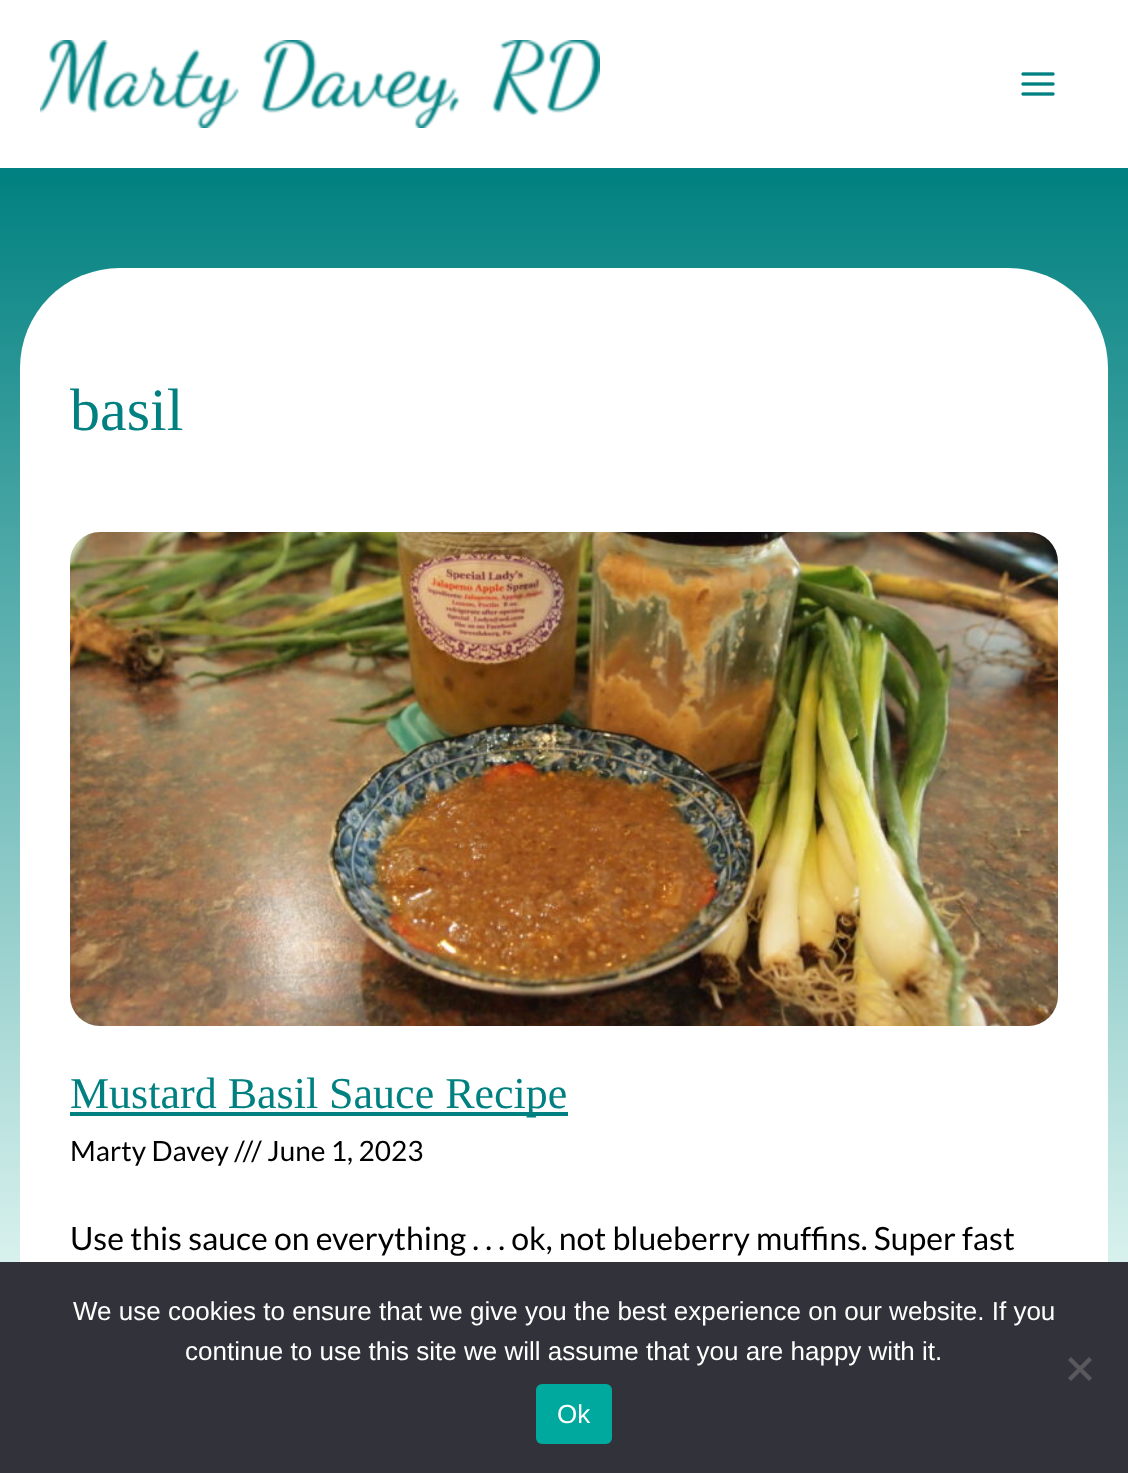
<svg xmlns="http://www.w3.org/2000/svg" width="1128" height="1473">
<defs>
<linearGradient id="g1" gradientUnits="userSpaceOnUse" x1="564" y1="168" x2="564" y2="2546"><stop offset="0" stop-color="#008080"/><stop offset="0.5" stop-color="#ebfbf7"/></linearGradient>
</defs>
<rect width="100%" height="100%" fill="#fff"/>
<image x="40" y="40" width="560" height="88" href="media/1.png"/>
<image x="1021" y="72" width="34" height="24" href="media/2.png"/>
<rect y="168" width="1128" height="1094" fill="url(#g1)"/>
<rect x="20" y="268" width="1088" height="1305" rx="100" fill="#fff"/>
<text x="70" y="430" style="font-family:Liberation Serif;font-size:60px;fill:#008080">basil</text>
<image x="70" y="532" width="988" height="494" href="media/3.png"/>
<rect x="70" y="1112" width="498" height="4" fill="#008080"/>
<text x="70" y="1108" style="font-family:Liberation Serif;font-size:44px;fill:#008080">Mustard Basil Sauce Recipe</text>
<text x="70" y="1161" style="font-family:Lato;font-size:28px;fill:#000">Marty Davey /// June 1, 2023</text>
<text x="70" y="1250" style="font-family:Lato;font-size:32px;fill:#000">Use this sauce on everything . . . ok, not blueberry muffins. Super fast</text>
<rect y="1262" width="1128" height="211" fill="#32323a"/>
<text x="73" y="1320" style="font-family:Liberation Sans;font-size:26px;fill:#fff">We use cookies to ensure that we give you the best experience on our website. If you</text>
<text x="185" y="1360" style="font-family:Liberation Sans;font-size:26px;fill:#fff">continue to use this site we will assume that you are happy with it.</text>
<path d="M1089 1357l3 3l-21 21l-3-3z" fill="#59595d"/>
<path d="M1068 1360l3-3l21 21l-3 3z" fill="#59595d"/>
<rect x="536" y="1384" width="76" height="60" rx="6" fill="#00a99d"/>
<text x="557" y="1423" style="font-family:Liberation Sans;font-size:26px;fill:#fff">Ok</text>
</svg>
